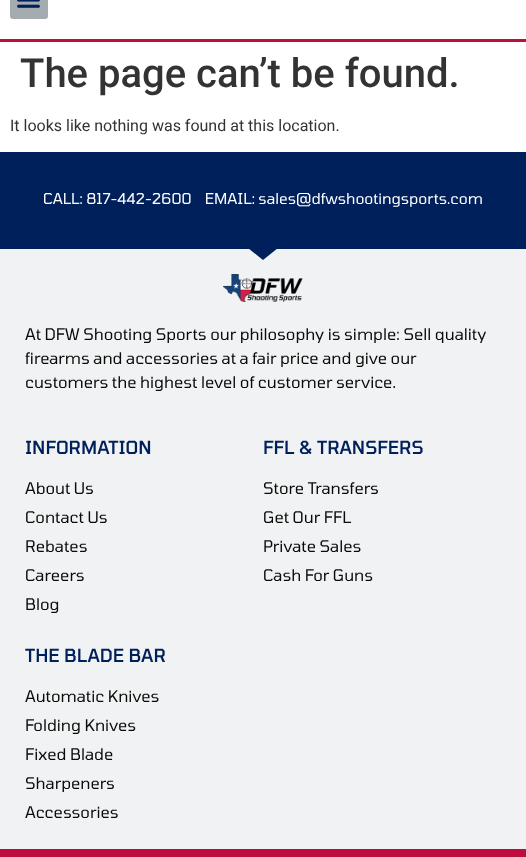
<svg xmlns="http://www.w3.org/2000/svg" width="526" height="857">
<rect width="100%" height="100%" fill="#fff"/>
<rect y="39" width="526" height="3" fill="#bf0d3e"/>
<rect x="10" y="-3" width="38" height="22" rx="3" fill="#a5acaf"/>
<image x="17" y="0" width="23" height="8" href="media/1.png"/>
<text x="20" y="87" style="font-family:Roboto;font-size:40px;font-weight:500;fill:#333">The page can’t be found.</text>
<text x="10" y="131" style="font-family:Roboto;font-size:16px;fill:#333">It looks like nothing was found at this location.</text>
<rect y="152" width="526" height="97" fill="#00205b"/>
<text x="43" y="204" style="font-family:Tomorrow;font-size:15px;fill:#fff" xml:space="preserve">CALL: 817-442-2600    EMAIL: sales@dfwshootingsports.com</text>
<rect y="249" width="526" height="600" fill="#f1f2f3"/>
<path d="M263 260l-15-12h30z" fill="#00205b"/>
<image x="223" y="274" width="80" height="28" href="media/2.png"/>
<text x="25" y="340" style="font-family:Tomorrow;font-size:16px;fill:#0a0a08">At DFW Shooting Sports our philosophy is simple: Sell quality</text>
<text x="25" y="364" style="font-family:Tomorrow;font-size:16px;fill:#0a0a08">firearms and accessories at a fair price and give our</text>
<text x="25" y="388" style="font-family:Tomorrow;font-size:16px;fill:#0a0a08">customers the highest level of customer service.</text>
<text x="25" y="454" style="font-family:Tomorrow;font-size:18px;font-weight:500;fill:#00205b">INFORMATION</text>
<text x="25" y="494" style="font-family:Tomorrow;font-size:16px;fill:#0a0a08">About Us</text>
<text x="25" y="523" style="font-family:Tomorrow;font-size:16px;fill:#0a0a08">Contact Us</text>
<text x="25" y="552" style="font-family:Tomorrow;font-size:16px;fill:#0a0a08">Rebates</text>
<text x="25" y="581" style="font-family:Tomorrow;font-size:16px;fill:#0a0a08">Careers</text>
<text x="25" y="610" style="font-family:Tomorrow;font-size:16px;fill:#0a0a08">Blog</text>
<text x="263" y="454" style="font-family:Tomorrow;font-size:18px;font-weight:500;fill:#00205b">FFL &amp; TRANSFERS</text>
<text x="263" y="494" style="font-family:Tomorrow;font-size:16px;fill:#0a0a08">Store Transfers</text>
<text x="263" y="523" style="font-family:Tomorrow;font-size:16px;fill:#0a0a08">Get Our FFL</text>
<text x="263" y="552" style="font-family:Tomorrow;font-size:16px;fill:#0a0a08">Private Sales</text>
<text x="263" y="581" style="font-family:Tomorrow;font-size:16px;fill:#0a0a08">Cash For Guns</text>
<text x="25" y="662" style="font-family:Tomorrow;font-size:18px;font-weight:500;fill:#00205b">THE BLADE BAR</text>
<text x="25" y="702" style="font-family:Tomorrow;font-size:16px;fill:#0a0a08">Automatic Knives</text>
<text x="25" y="731" style="font-family:Tomorrow;font-size:16px;fill:#0a0a08">Folding Knives</text>
<text x="25" y="760" style="font-family:Tomorrow;font-size:16px;fill:#0a0a08">Fixed Blade</text>
<text x="25" y="789" style="font-family:Tomorrow;font-size:16px;fill:#0a0a08">Sharpeners</text>
<text x="25" y="818" style="font-family:Tomorrow;font-size:16px;fill:#0a0a08">Accessories</text>
<rect y="849" width="526" height="8" fill="#bf0d3e"/>
</svg>
